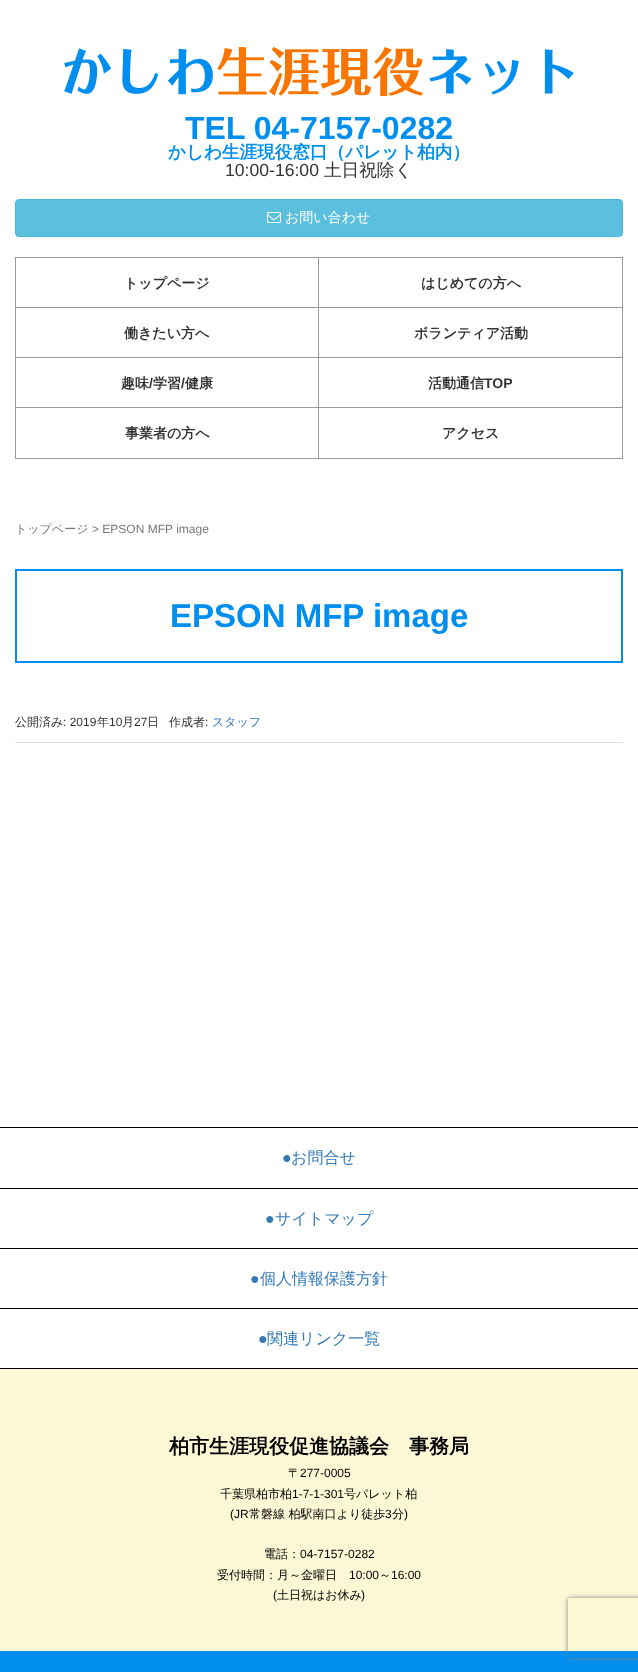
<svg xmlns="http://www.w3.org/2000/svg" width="638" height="1672">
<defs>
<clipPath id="clip1"><path d="M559 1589h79v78h-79zm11 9h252c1 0 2 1 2 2v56c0 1-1 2-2 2h-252c-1 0-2-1-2-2v-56c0-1 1-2 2-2z" clip-rule="evenodd"/></clipPath>
</defs>
<rect width="100%" height="100%" fill="#fff"/>
<image x="64" y="47" width="510" height="49" href="media/1.png"/>
<text x="185" y="139" style="font-family:Liberation Sans;font-size:32px;font-weight:bold;fill:#008fef">TEL 04-7157-0282</text>
<text x="168" y="158" style="font-family:WenQuanYi Zen Hei;font-size:17.6px;font-weight:bold;fill:#008fef">かしわ生涯現役窓口（パレット柏内）</text>
<text x="225" y="176" style="font-family:Liberation Sans;font-size:17.6px;fill:#333">10:00-16:00</text>
<text x="324" y="176" style="font-family:WenQuanYi Zen Hei;font-size:17.6px;font-weight:500;fill:#333">土日祝除く</text>
<rect x="15.5" y="199.5" width="607" height="37" rx="3.5" fill="#5bc0de" stroke="#46b8da"/>
<image x="267" y="212" width="14" height="11" href="media/2.png"/>
<text x="285" y="222" style="font-family:WenQuanYi Zen Hei;font-size:14px;font-weight:500;fill:#fff">お問い合わせ</text>
<rect x="15.5" y="257.5" width="607" height="201" fill="none" stroke="#999"/>
<rect x="318" y="258" width="1" height="200" fill="#999"/>
<rect x="16" y="307" width="606" height="1" fill="#999"/>
<text x="124" y="288" style="font-family:WenQuanYi Zen Hei;font-size:14px;font-weight:bold;fill:#333">トップページ</text>
<text x="421" y="288" style="font-family:WenQuanYi Zen Hei;font-size:14px;font-weight:bold;fill:#333">はじめての方へ</text>
<rect x="16" y="357" width="606" height="1" fill="#999"/>
<text x="124" y="338" style="font-family:WenQuanYi Zen Hei;font-size:14px;font-weight:bold;fill:#333">働きたい方へ</text>
<text x="414" y="338" style="font-family:WenQuanYi Zen Hei;font-size:14px;font-weight:bold;fill:#333">ボランティア活動</text>
<rect x="16" y="407" width="606" height="1" fill="#999"/>
<text x="121" y="388" style="font-family:WenQuanYi Zen Hei;font-size:14px;font-weight:bold;fill:#333">趣味</text>
<text x="149" y="388" style="font-family:Liberation Sans;font-size:14px;font-weight:bold;fill:#333">/</text>
<text x="153" y="388" style="font-family:WenQuanYi Zen Hei;font-size:14px;font-weight:bold;fill:#333">学習</text>
<text x="181" y="388" style="font-family:Liberation Sans;font-size:14px;font-weight:bold;fill:#333">/</text>
<text x="185" y="388" style="font-family:WenQuanYi Zen Hei;font-size:14px;font-weight:bold;fill:#333">健康</text>
<text x="428" y="388" style="font-family:WenQuanYi Zen Hei;font-size:14px;font-weight:bold;fill:#333">活動通信</text>
<text x="484" y="388" style="font-family:Liberation Sans;font-size:14px;font-weight:bold;fill:#333">TOP</text>
<text x="125" y="438" style="font-family:WenQuanYi Zen Hei;font-size:14px;font-weight:bold;fill:#333">事業者の方へ</text>
<text x="442" y="438" style="font-family:WenQuanYi Zen Hei;font-size:14px;font-weight:bold;fill:#333">アクセス</text>
<text x="15" y="533" style="font-family:WenQuanYi Zen Hei;font-size:12px;font-weight:500;fill:#777">トップページ</text>
<text x="92" y="533" style="font-family:Liberation Sans;font-size:12px;fill:#777">&gt; EPSON MFP image</text>
<rect x="16" y="570" width="606" height="92" fill="none" stroke="#008fef" stroke-width="2"/>
<text x="170" y="627" style="font-family:Liberation Sans;font-size:33px;font-weight:bold;fill:#008fef">EPSON MFP image</text>
<rect x="15" y="742" width="608" height="1" fill="#ddd"/>
<text x="15" y="726" style="font-family:WenQuanYi Zen Hei;font-size:12px;font-weight:500;fill:#333">公開済み</text>
<text x="63" y="726" style="font-family:Liberation Sans;font-size:12px;fill:#333">: 2019</text>
<text x="97" y="726" style="font-family:WenQuanYi Zen Hei;font-size:12px;font-weight:500;fill:#333">年</text>
<text x="109" y="726" style="font-family:Liberation Sans;font-size:12px;fill:#333">10</text>
<text x="122" y="726" style="font-family:WenQuanYi Zen Hei;font-size:12px;font-weight:500;fill:#333">月</text>
<text x="134" y="726" style="font-family:Liberation Sans;font-size:12px;fill:#333">27</text>
<text x="147" y="726" style="font-family:WenQuanYi Zen Hei;font-size:12px;font-weight:500;fill:#333">日</text>
<text x="169" y="726" style="font-family:WenQuanYi Zen Hei;font-size:12px;font-weight:500;fill:#333">作成者</text>
<text x="205" y="726" style="font-family:Liberation Sans;font-size:12px;fill:#333">:</text>
<text x="212" y="726" style="font-family:WenQuanYi Zen Hei;font-size:12px;font-weight:500;fill:#337ab7">スタッフ</text>
<rect y="1127" width="638" height="1" fill="#000"/>
<text x="282" y="1163" style="font-family:Liberation Sans;font-size:16px;fill:#337ab7">●</text>
<text x="291" y="1163" style="font-family:WenQuanYi Zen Hei;font-size:16px;font-weight:500;fill:#337ab7">お問合せ</text>
<rect y="1188" width="638" height="1" fill="#000"/>
<text x="265" y="1224" style="font-family:Liberation Sans;font-size:16px;fill:#337ab7">●</text>
<text x="275" y="1224" style="font-family:WenQuanYi Zen Hei;font-size:16px;font-weight:500;fill:#337ab7">サイトマップ</text>
<rect y="1248" width="638" height="1" fill="#000"/>
<text x="250" y="1284" style="font-family:Liberation Sans;font-size:16px;fill:#337ab7">●</text>
<text x="260" y="1284" style="font-family:WenQuanYi Zen Hei;font-size:16px;font-weight:500;fill:#337ab7">個人情報保護方針</text>
<rect y="1308" width="638" height="1" fill="#000"/>
<rect y="1368" width="638" height="1" fill="#000"/>
<text x="258" y="1344" style="font-family:Liberation Sans;font-size:16px;fill:#337ab7">●</text>
<text x="267" y="1344" style="font-family:WenQuanYi Zen Hei;font-size:16px;font-weight:500;fill:#337ab7">関連リンク一覧</text>
<rect y="1369" width="638" height="282" fill="#fcf8d6"/>
<text x="169" y="1453" style="font-family:WenQuanYi Zen Hei;font-size:20px;font-weight:bold;fill:#000">柏市生涯現役促進協議会　事務局</text>
<text x="288" y="1477" style="font-family:WenQuanYi Zen Hei;font-size:12px;font-weight:500;fill:#000">〒</text>
<text x="300" y="1477" style="font-family:Liberation Sans;font-size:12px;fill:#000">277-0005</text>
<text x="220" y="1498" style="font-family:WenQuanYi Zen Hei;font-size:12px;font-weight:500;fill:#000">千葉県柏市柏</text>
<text x="292" y="1498" style="font-family:Liberation Sans;font-size:12px;fill:#000">1-7-1-301</text>
<text x="344" y="1498" style="font-family:WenQuanYi Zen Hei;font-size:12px;font-weight:500;fill:#000">号パレット柏</text>
<text x="230" y="1518" style="font-family:Liberation Sans;font-size:12px;fill:#000">(JR</text>
<text x="249" y="1518" style="font-family:WenQuanYi Zen Hei;font-size:12px;font-weight:500;fill:#000">常磐線 柏駅南口より徒歩</text>
<text x="385" y="1518" style="font-family:Liberation Sans;font-size:12px;fill:#000">3</text>
<text x="392" y="1518" style="font-family:WenQuanYi Zen Hei;font-size:12px;font-weight:500;fill:#000">分</text>
<text x="404" y="1518" style="font-family:Liberation Sans;font-size:12px;fill:#000">)</text>
<text x="264" y="1558" style="font-family:WenQuanYi Zen Hei;font-size:12px;font-weight:500;fill:#000">電話：</text>
<text x="300" y="1558" style="font-family:Liberation Sans;font-size:12px;fill:#000">04-7157-0282</text>
<text x="217" y="1579" style="font-family:WenQuanYi Zen Hei;font-size:12px;font-weight:500;fill:#000">受付時間：月～金曜日</text>
<text x="349" y="1579" style="font-family:Liberation Sans;font-size:12px;fill:#000">10:00</text>
<text x="379" y="1579" style="font-family:WenQuanYi Zen Hei;font-size:12px;font-weight:500;fill:#000">～</text>
<text x="391" y="1579" style="font-family:Liberation Sans;font-size:12px;fill:#000">16:00</text>
<text x="273" y="1599" style="font-family:Liberation Sans;font-size:12px;fill:#000">(</text>
<text x="277" y="1599" style="font-family:WenQuanYi Zen Hei;font-size:12px;font-weight:500;fill:#000">土日祝はお休み</text>
<text x="361" y="1599" style="font-family:Liberation Sans;font-size:12px;fill:#000">)</text>
<rect y="1651" width="638" height="21" fill="#008fef"/>
<g clip-path="url(#clip1)">
<rect x="568" y="1598" width="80" height="60" rx="2" fill="#808080" filter="blur(2.5px)"/>
</g>
</svg>
